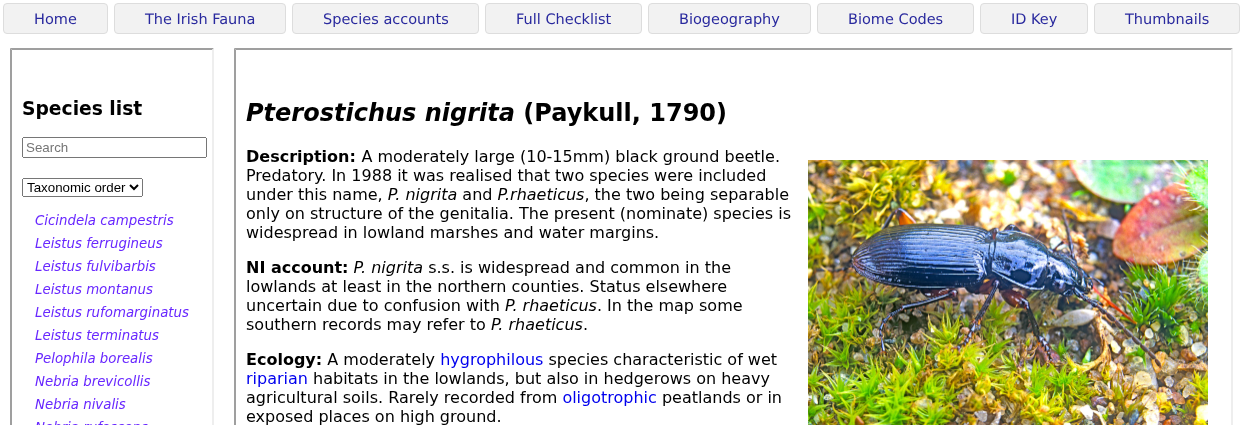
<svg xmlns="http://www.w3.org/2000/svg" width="1243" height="425">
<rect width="100%" height="100%" fill="#fff"/>
<rect x="3.5" y="3.5" width="104" height="30" rx="3.5" fill="#f2f2f2" stroke="#ddd"/>
<text x="34" y="24" style="font-family:DejaVu Sans;font-size:14.5px;fill:#29299e">Home</text>
<rect x="114.5" y="3.5" width="171" height="30" rx="3.5" fill="#f2f2f2" stroke="#ddd"/>
<text x="145" y="24" style="font-family:DejaVu Sans;font-size:14.5px;fill:#29299e">The Irish Fauna</text>
<rect x="292.5" y="3.5" width="186" height="30" rx="3.5" fill="#f2f2f2" stroke="#ddd"/>
<text x="323" y="24" style="font-family:DejaVu Sans;font-size:14.5px;fill:#29299e">Species accounts</text>
<rect x="485.5" y="3.5" width="156" height="30" rx="3.5" fill="#f2f2f2" stroke="#ddd"/>
<text x="516" y="24" style="font-family:DejaVu Sans;font-size:14.5px;fill:#29299e">Full Checklist</text>
<rect x="648.5" y="3.5" width="162" height="30" rx="3.5" fill="#f2f2f2" stroke="#ddd"/>
<text x="679" y="24" style="font-family:DejaVu Sans;font-size:14.5px;fill:#29299e">Biogeography</text>
<rect x="817.5" y="3.5" width="156" height="30" rx="3.5" fill="#f2f2f2" stroke="#ddd"/>
<text x="848" y="24" style="font-family:DejaVu Sans;font-size:14.5px;fill:#29299e">Biome Codes</text>
<rect x="980.5" y="3.5" width="107" height="30" rx="3.5" fill="#f2f2f2" stroke="#ddd"/>
<text x="1011" y="24" style="font-family:DejaVu Sans;font-size:14.5px;fill:#29299e">ID Key</text>
<rect x="1094.5" y="3.5" width="145" height="30" rx="3.5" fill="#f2f2f2" stroke="#ddd"/>
<text x="1125" y="24" style="font-family:DejaVu Sans;font-size:14.5px;fill:#29299e">Thumbnails</text>
<path d="M10 48h204l-2 2h-200z" fill="#9f9f9f"/>
<path d="M214 48v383l-2-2v-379z" fill="#eee"/>
<path d="M10 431v-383l2 2v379z" fill="#9f9f9f"/>
<image x="12" y="50" width="200" height="375" href="media/1.png"/>
<path d="M234 48h999l-2 2h-995z" fill="#9f9f9f"/>
<path d="M1233 48v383l-2-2v-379z" fill="#eee"/>
<path d="M234 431v-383l2 2v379z" fill="#9f9f9f"/>
<image x="246" y="102" width="962" height="323" href="media/2.png"/>
</svg>
